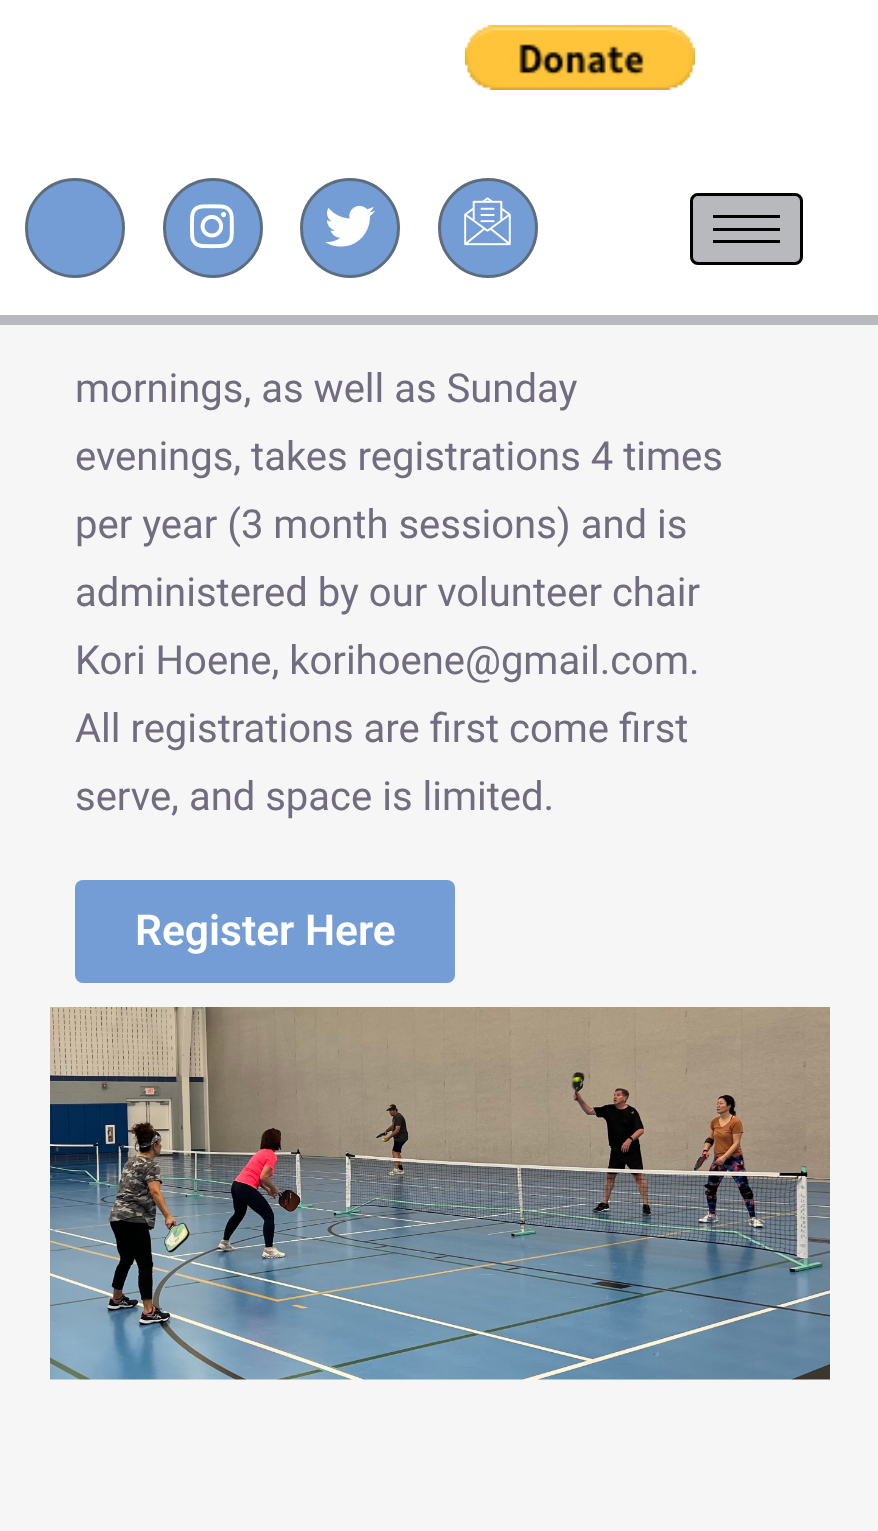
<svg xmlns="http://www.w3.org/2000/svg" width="878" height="1531">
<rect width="100%" height="100%" fill="#f6f6f6"/>
<rect width="878" height="315" fill="#fff"/>
<rect y="315" width="878" height="10" fill="#b7b9bd"/>
<image x="465" y="25" width="230" height="65" href="media/1.png"/>
<circle cx="75" cy="228" r="48.5" fill="#749dd5" stroke="#5e6d7e" stroke-width="3"/>
<circle cx="213" cy="228" r="48.5" fill="#749dd5" stroke="#5e6d7e" stroke-width="3"/>
<image x="190" y="204" width="44" height="45" href="media/2.png"/>
<circle cx="350" cy="228" r="48.5" fill="#749dd5" stroke="#5e6d7e" stroke-width="3"/>
<image x="325" y="205" width="50" height="42" href="media/3.png"/>
<circle cx="488" cy="228" r="48.5" fill="#749dd5" stroke="#5e6d7e" stroke-width="3"/>
<image x="464" y="197" width="47" height="49" href="media/4.png"/>
<rect x="691.5" y="194.5" width="110" height="69" rx="6.5" fill="#b7b9bd" stroke="#000" stroke-width="3"/>
<rect x="713" y="215" width="67" height="3" fill="#000"/>
<rect x="713" y="228" width="67" height="3" fill="#000"/>
<rect x="713" y="240" width="67" height="3" fill="#000"/>
<text x="75" y="402" style="font-family:Roboto;font-size:40px;fill:#716c80">mornings, as well as Sunday</text>
<text x="75" y="470" style="font-family:Roboto;font-size:40px;fill:#716c80">evenings, takes registrations 4 times</text>
<text x="75" y="538" style="font-family:Roboto;font-size:40px;fill:#716c80">per year (3 month sessions) and is</text>
<text x="75" y="606" style="font-family:Roboto;font-size:40px;fill:#716c80">administered by our volunteer chair</text>
<text x="75" y="674" style="font-family:Roboto;font-size:40px;fill:#716c80">Kori Hoene, korihoene@gmail.com.</text>
<text x="75" y="742" style="font-family:Roboto;font-size:40px;fill:#716c80">All registrations are first come first</text>
<text x="75" y="810" style="font-family:Roboto;font-size:40px;fill:#716c80">serve, and space is limited.</text>
<rect x="75" y="880" width="380" height="103" rx="8" fill="#749dd5"/>
<text x="135" y="945" style="font-family:Roboto;font-size:42.5px;font-weight:600;fill:#fff">Register Here</text>
<image x="50" y="1007" width="780" height="373" href="media/5.png"/>
</svg>
